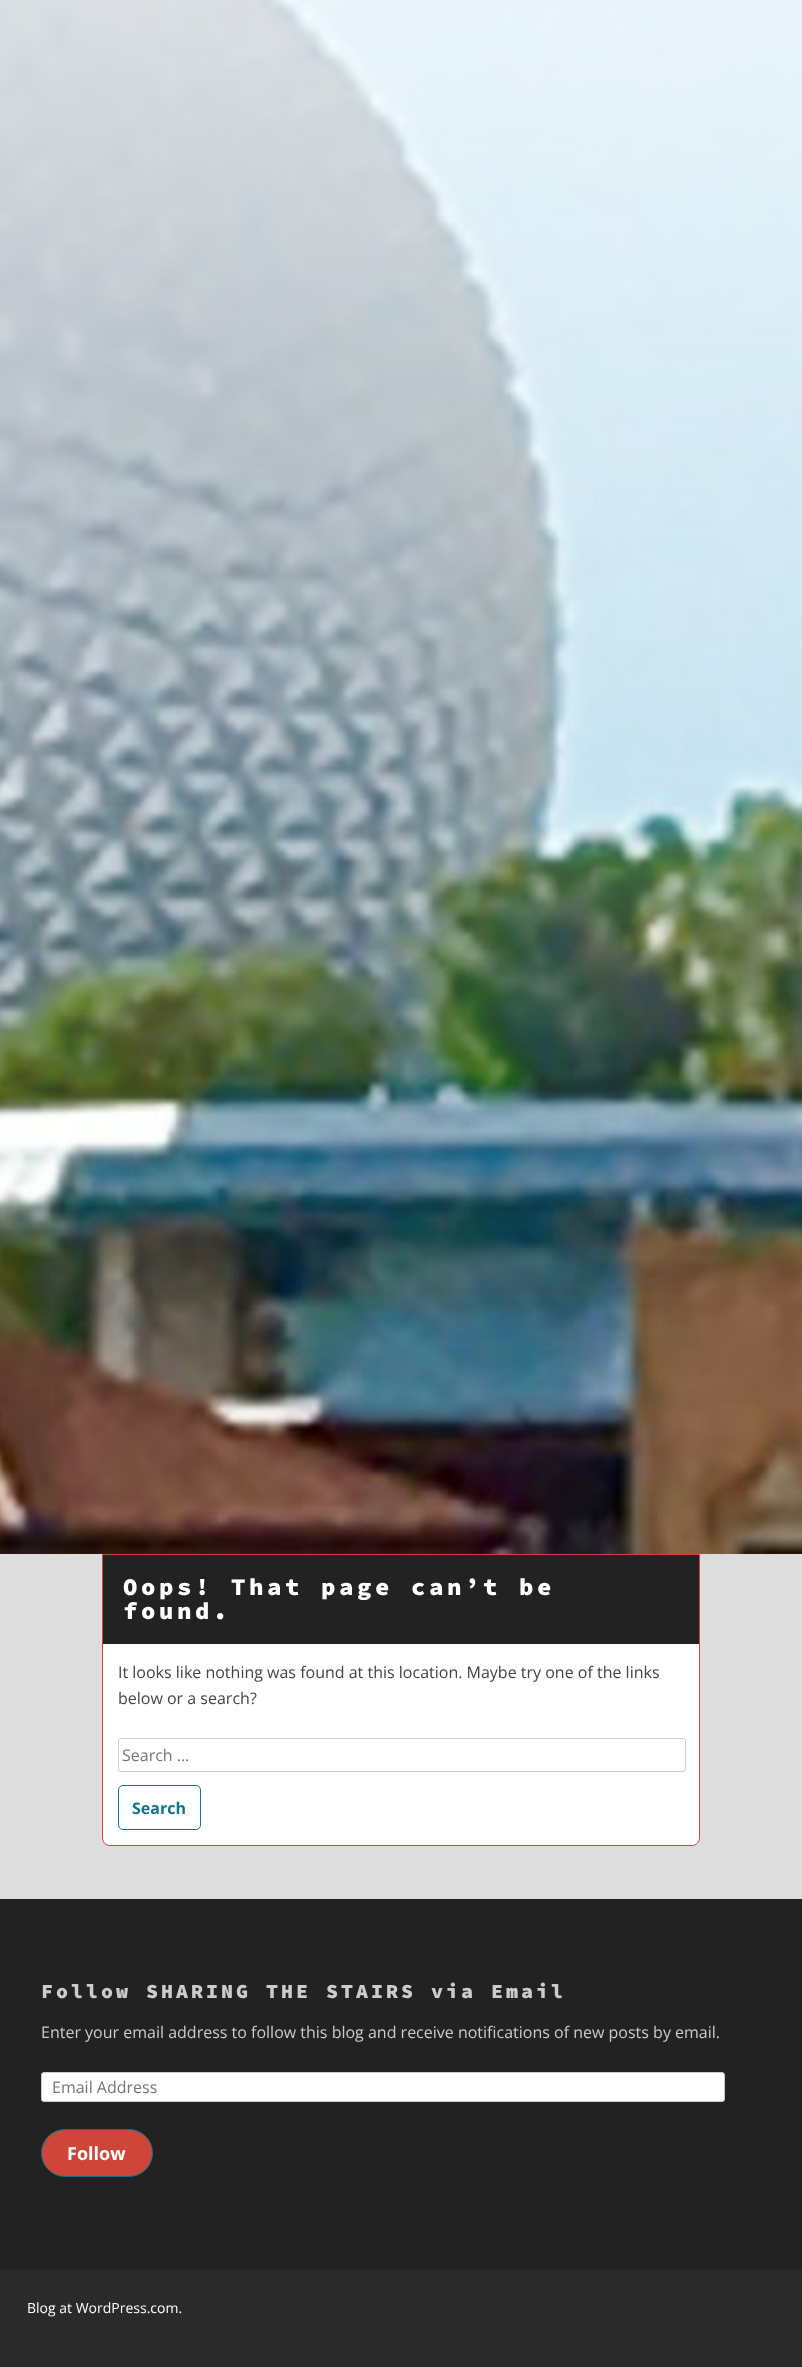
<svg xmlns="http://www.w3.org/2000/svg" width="802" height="2367">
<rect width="100%" height="100%" fill="#ddd"/>
<image x="0" y="0" width="802" height="1554" href="media/1.png"/>
<path d="M102.5 1554.5h597v283.5c0 4-3.5 7.5-7.5 7.5h-582c-4 0-7.5-3.5-7.5-7.5z" fill="#fff" stroke="#ce4639"/>
<rect x="103" y="1555" width="596" height="89" fill="#222"/>
<text x="123" y="1595" style="font-family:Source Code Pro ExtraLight;font-size:24px;font-weight:200;letter-spacing:3.6px;fill:#fff">Oops! That page can’t be</text>
<text x="123" y="1619" style="font-family:Source Code Pro ExtraLight;font-size:24px;font-weight:200;letter-spacing:3.6px;fill:#fff">found.</text>
<text x="118" y="1678" style="font-family:Open Sans;font-size:16px;fill:#434343">It looks like nothing was found at this location. Maybe try one of the links</text>
<text x="118" y="1704" style="font-family:Open Sans;font-size:16px;fill:#434343">below or a search?</text>
<rect x="118.5" y="1738.5" width="567" height="33" rx="2.5" fill="none" stroke="#ccc"/>
<text x="122" y="1761" style="font-family:Open Sans;font-size:16px;fill:#757575">Search …</text>
<rect x="118.5" y="1785.5" width="82" height="44" rx="4.5" fill="none" stroke="#0c758c"/>
<text x="132" y="1814" style="font-family:Open Sans;font-size:16px;font-weight:bold;fill:#0c758c">Search</text>
<rect y="1899" width="802" height="370" fill="#222"/>
<text x="41" y="1998" style="font-family:Source Code Pro ExtraLight;font-size:20px;font-weight:200;letter-spacing:3px;fill:#ccc">Follow SHARING THE STAIRS via Email</text>
<text x="41" y="2038" style="font-family:Open Sans;font-size:16px;fill:#ccc">Enter your email address to follow this blog and receive notifications of new posts by email.</text>
<rect x="41.5" y="2072.5" width="683" height="29" rx="2.5" fill="#fff" stroke="#ccc"/>
<text x="52" y="2093" style="font-family:Open Sans;font-size:16px;fill:#757575">Email Address</text>
<rect x="41.5" y="2129.5" width="111" height="47" rx="23.5" fill="#ce4639" stroke="#0c758c"/>
<text x="67" y="2160" style="font-family:Open Sans;font-size:18px;font-weight:bold;fill:#fff">Follow</text>
<rect y="2269" width="802" height="98" fill="#2a2a2a"/>
<text x="27" y="2313" style="font-family:Open Sans;font-size:14px;fill:#fff">Blog at WordPress.com.</text>
</svg>
